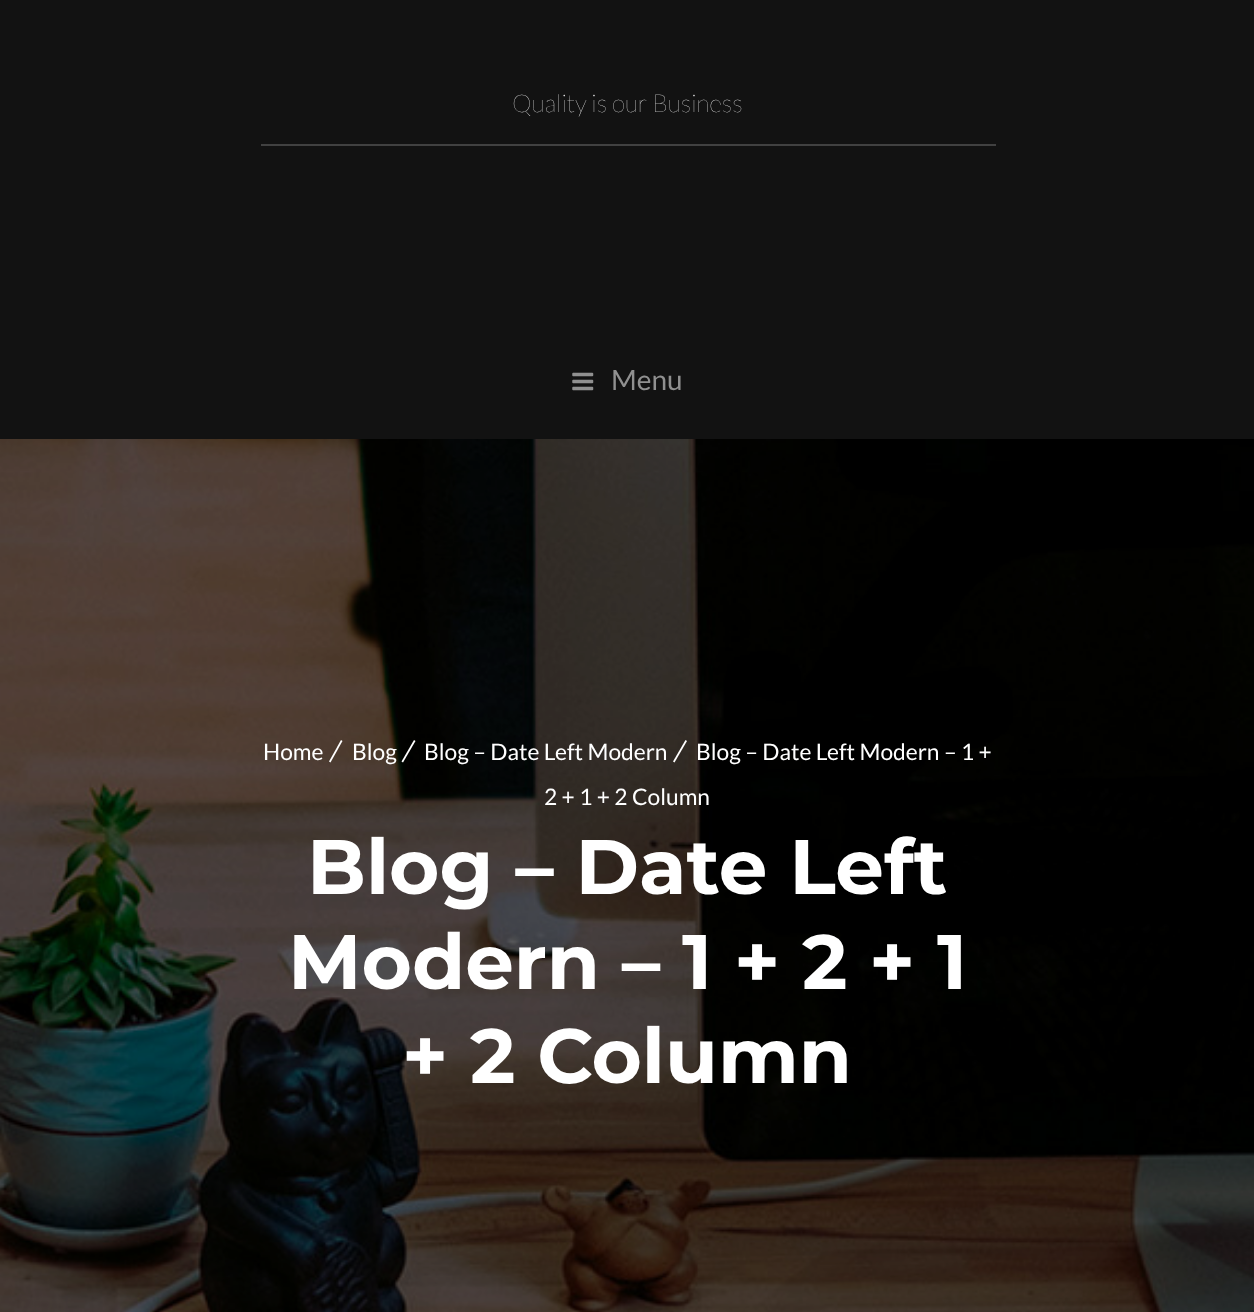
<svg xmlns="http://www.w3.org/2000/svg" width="1254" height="1312">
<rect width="100%" height="100%" fill="#fff"/>
<rect width="1254" height="439" fill="#121212"/>
<rect x="261" y="144" width="735" height="2" fill="#414141"/>
<text x="512" y="112" style="font-family:Lato;font-size:24.5px;font-weight:100;fill:#fff">Quality is our Business</text>
<image x="572" y="372" width="22" height="19" href="media/1.png"/>
<text x="611" y="390" style="font-family:Lato;font-size:28px;fill:#909090">Menu</text>
<image x="0" y="439" width="1254" height="873" href="media/2.png"/>
<rect y="439" width="1254" height="873" fill="#0000004d"/>
<text x="263" y="760" style="font-family:Lato;font-size:22.75px;fill:#fff">Home</text>
<path d="M341 740l1.5 1l-12 21.5l-1.5-1z" fill="#fff"/>
<text x="352" y="760" style="font-family:Lato;font-size:22.75px;fill:#fff">Blog</text>
<path d="M414 740l1.5 1l-12.5 21.5l-1.5-1z" fill="#fff"/>
<text x="424" y="760" style="font-family:Lato;font-size:22.75px;fill:#fff">Blog – Date Left Modern</text>
<path d="M685.5 740l1.5 1l-12.5 21.5l-1.5-1z" fill="#fff"/>
<text x="696" y="760" style="font-family:Lato;font-size:22.75px;fill:#fff">Blog – Date Left Modern – 1 +</text>
<text x="544" y="805" style="font-family:Lato;font-size:22.75px;fill:#fff">2 + 1 + 2 Column</text>
<text x="307" y="894" style="font-family:Montserrat;font-size:77px;font-weight:bold;fill:#fff">Blog – Date Left</text>
<text x="288" y="989" style="font-family:Montserrat;font-size:77px;font-weight:bold;fill:#fff">Modern – 1 + 2 + 1</text>
<text x="402" y="1083" style="font-family:Montserrat;font-size:77px;font-weight:bold;fill:#fff">+ 2 Column</text>
</svg>
